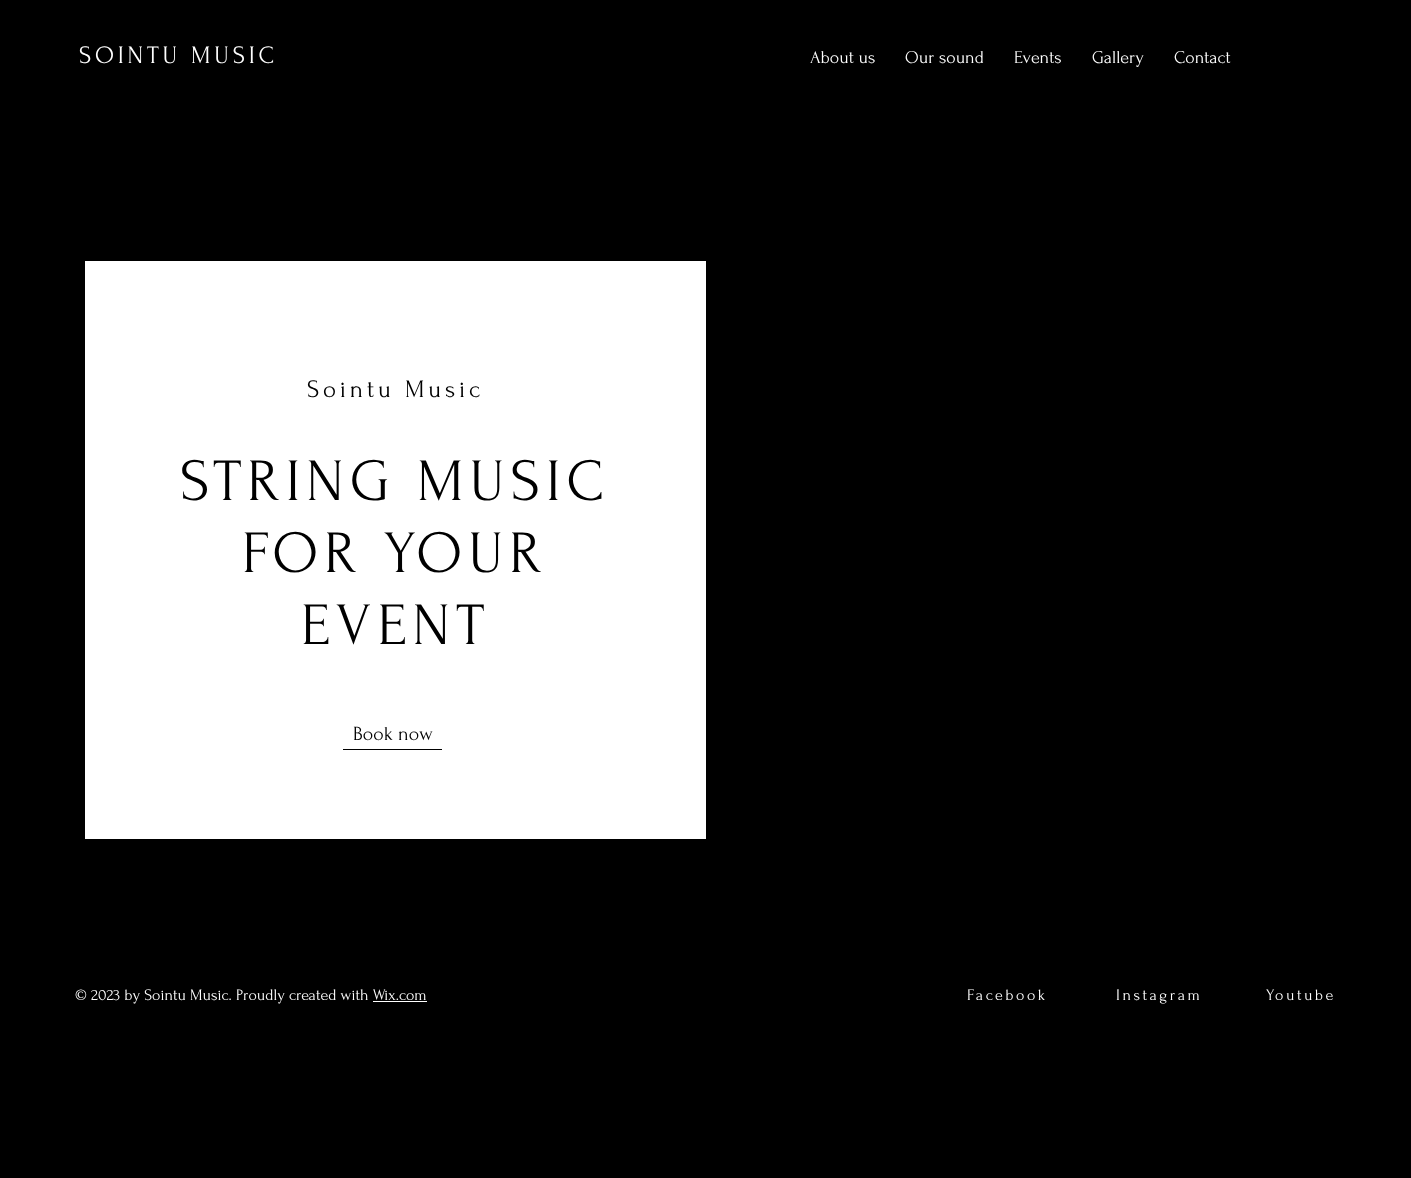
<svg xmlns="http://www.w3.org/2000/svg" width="1411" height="1178">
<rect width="100%" height="100%" fill="#000"/>
<text x="79" y="63" style="font-family:Forum;font-size:25px;letter-spacing:3.75px;fill:#fff">SOINTU MUSIC</text>
<text x="810" y="63" style="font-family:Forum;font-size:18px;fill:#fff">About us</text>
<text x="905" y="63" style="font-family:Forum;font-size:18px;fill:#fff">Our sound</text>
<text x="1014" y="63" style="font-family:Forum;font-size:18px;fill:#fff">Events</text>
<text x="1092" y="63" style="font-family:Forum;font-size:18px;fill:#fff">Gallery</text>
<text x="1174" y="63" style="font-family:Forum;font-size:18px;fill:#fff">Contact</text>
<rect x="85" y="261" width="621" height="578" fill="#fff"/>
<text x="307" y="397" style="font-family:Forum;font-size:25px;letter-spacing:3.75px;fill:#000">Sointu Music</text>
<text x="180" y="500" style="font-family:Forum;font-size:60px;letter-spacing:6px;fill:#000">STRING MUSIC</text>
<text x="242" y="572" style="font-family:Forum;font-size:60px;letter-spacing:6px;fill:#000">FOR YOUR</text>
<text x="301" y="644" style="font-family:Forum;font-size:60px;letter-spacing:6px;fill:#000">EVENT</text>
<text x="353" y="740" style="font-family:Forum;font-size:20px;fill:#000">Book now</text>
<rect x="343" y="749" width="99" height="1" fill="#000"/>
<text x="75" y="1000" style="font-family:Forum;font-size:16px;fill:#fff">© 2023 by Sointu Music. Proudly created with Wix.com</text>
<rect x="373" y="1001" width="54" height="1" fill="#fff"/>
<text x="967" y="1000" style="font-family:Forum;font-size:16px;letter-spacing:2.5px;fill:#fff">Facebook</text>
<text x="1116" y="1000" style="font-family:Forum;font-size:16px;letter-spacing:2.5px;fill:#fff">Instagram</text>
<text x="1266" y="1000" style="font-family:Forum;font-size:16px;letter-spacing:2.5px;fill:#fff">Youtube</text>
</svg>
